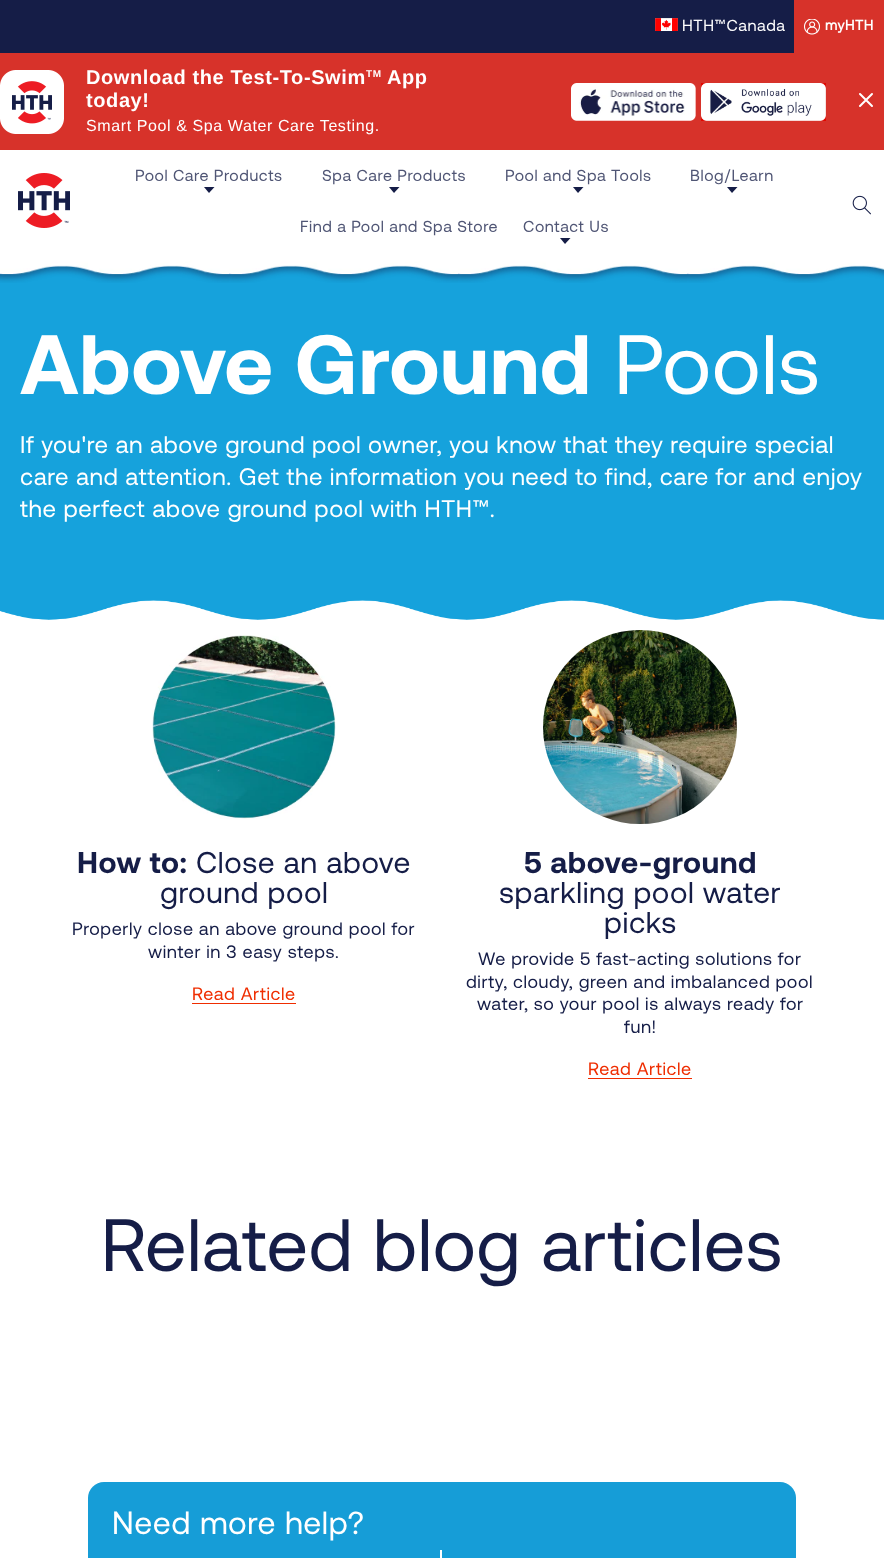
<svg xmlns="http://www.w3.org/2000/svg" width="884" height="1558">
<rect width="100%" height="100%" fill="#fff"/>
<rect width="794" height="53" fill="#151d47"/>
<image x="655" y="18" width="23" height="13" href="media/1.png"/>
<text x="682" y="31" style="font-family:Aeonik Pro;font-size:16px;letter-spacing:0.6px;fill:#fff">HTH™Canada</text>
<rect x="794" width="90" height="53" fill="#d7322a"/>
<image x="804" y="19" width="16" height="16" href="media/2.png"/>
<text x="825" y="30" style="font-family:'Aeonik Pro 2';font-size:14px;font-weight:bold;letter-spacing:0.6px;fill:#fff">myHTH</text>
<rect y="53" width="884" height="97" fill="#d7322a"/>
<image x="0" y="70" width="64" height="64" href="media/3.png"/>
<text x="86" y="84" style="font-family:Liberation Sans;font-size:20px;font-weight:bold;letter-spacing:0.6px;fill:#fff">Download the Test-To-Swim</text>
<text x="366" y="77" style="font-family:Liberation Sans;font-size:10px;font-weight:bold;letter-spacing:0.6px;fill:#fff">TM</text>
<text x="387" y="84" style="font-family:Liberation Sans;font-size:20px;font-weight:bold;letter-spacing:0.6px;fill:#fff">App</text>
<text x="86" y="107" style="font-family:Liberation Sans;font-size:20px;font-weight:bold;letter-spacing:0.6px;fill:#fff">today!</text>
<text x="86" y="131" style="font-family:Liberation Sans;font-size:16px;letter-spacing:0.6px;fill:#fff">Smart Pool &amp; Spa Water Care Testing.</text>
<image x="571" y="83" width="125" height="38" href="media/4.png"/>
<image x="701" y="83" width="125" height="38" href="media/5.png"/>
<path d="M872 94l-12 12m0-12l12 12" fill="none" stroke="#fff" stroke-width="2" stroke-linecap="round" stroke-linejoin="round"/>
<image x="18" y="173" width="52" height="55" href="media/6.png"/>
<text x="135" y="181" style="font-family:Aeonik Pro;font-size:16px;letter-spacing:0.6px;fill:#505675">Pool Care Products</text>
<path d="M214.5 187l-5.5 6l-5-6z" fill="#151d47"/>
<text x="322" y="181" style="font-family:Aeonik Pro;font-size:16px;letter-spacing:0.6px;fill:#505675">Spa Care Products</text>
<path d="M399.5 187l-5.5 6l-5-6z" fill="#151d47"/>
<text x="505" y="181" style="font-family:Aeonik Pro;font-size:16px;letter-spacing:0.6px;fill:#505675">Pool and Spa Tools</text>
<path d="M583.5 187l-5.5 6l-5-6z" fill="#151d47"/>
<text x="690" y="181" style="font-family:Aeonik Pro;font-size:16px;letter-spacing:0.6px;fill:#505675">Blog/Learn</text>
<path d="M737.5 187l-5.5 6l-5-6z" fill="#151d47"/>
<text x="300" y="232" style="font-family:Aeonik Pro;font-size:16px;letter-spacing:0.6px;fill:#505675">Find a Pool and Spa Store</text>
<text x="523" y="232" style="font-family:Aeonik Pro;font-size:16px;letter-spacing:0.6px;fill:#505675">Contact Us</text>
<path d="M570.5 238l-5.5 6l-5-6z" fill="#151d47"/>
<image x="852" y="195" width="19" height="20" href="media/7.png"/>
<rect y="265" width="884" height="329" fill="#16a2dc"/>
<image x="0" y="260" width="884" height="23" href="media/8.png"/>
<text x="20" y="394" style="font-family:Aeonik Pro;font-size:84px;font-weight:bold;letter-spacing:0.6px;fill:#fff">Above Ground</text>
<text x="614" y="394" style="font-family:Aeonik Pro;font-size:84px;letter-spacing:0.6px;fill:#fff">Pools</text>
<text x="20" y="453" style="font-family:Aeonik Pro;font-size:24px;letter-spacing:0.6px;fill:#fff">If you're an above ground pool owner, you know that they require special</text>
<text x="20" y="485" style="font-family:Aeonik Pro;font-size:24px;letter-spacing:0.6px;fill:#fff">care and attention. Get the information you need to find, care for and enjoy</text>
<text x="20" y="517" style="font-family:Aeonik Pro;font-size:24px;letter-spacing:0.6px;fill:#fff">the perfect above ground pool with HTH™.</text>
<image x="0" y="594" width="884" height="26" href="media/9.png"/>
<image x="152" y="635" width="184" height="184" href="media/10.png"/>
<text x="77" y="873" style="font-family:Aeonik Pro;font-size:30px;font-weight:bold;letter-spacing:0.6px;fill:#151d47">How to:</text>
<text x="196" y="873" style="font-family:Aeonik Pro;font-size:30px;letter-spacing:0.6px;fill:#151d47">Close an above</text>
<text x="160" y="903" style="font-family:Aeonik Pro;font-size:30px;letter-spacing:0.6px;fill:#151d47">ground pool</text>
<text x="72" y="935" style="font-family:Aeonik Pro;font-size:18px;letter-spacing:0.6px;fill:#151d47">Properly close an above ground pool for</text>
<text x="148" y="958" style="font-family:Aeonik Pro;font-size:18px;letter-spacing:0.6px;fill:#151d47">winter in 3 easy steps.</text>
<text x="192" y="1000" style="font-family:Aeonik Pro;font-size:18px;letter-spacing:0.6px;fill:#ef2d00">Read Article</text>
<rect x="192" y="1003" width="104" height="1" fill="#ef2d00"/>
<image x="543" y="630" width="194" height="194" href="media/11.png"/>
<text x="524" y="873" style="font-family:Aeonik Pro;font-size:30px;font-weight:bold;letter-spacing:0.6px;fill:#151d47">5 above-ground</text>
<text x="499" y="903" style="font-family:Aeonik Pro;font-size:30px;letter-spacing:0.6px;fill:#151d47">sparkling pool water</text>
<text x="604" y="933" style="font-family:Aeonik Pro;font-size:30px;letter-spacing:0.6px;fill:#151d47">picks</text>
<text x="478" y="965" style="font-family:Aeonik Pro;font-size:18px;letter-spacing:0.6px;fill:#151d47">We provide 5 fast-acting solutions for</text>
<text x="466" y="988" style="font-family:Aeonik Pro;font-size:18px;letter-spacing:0.6px;fill:#151d47">dirty, cloudy, green and imbalanced pool</text>
<text x="477" y="1010" style="font-family:Aeonik Pro;font-size:18px;letter-spacing:0.6px;fill:#151d47">water, so your pool is always ready for</text>
<text x="624" y="1033" style="font-family:Aeonik Pro;font-size:18px;letter-spacing:0.6px;fill:#151d47">fun!</text>
<text x="588" y="1075" style="font-family:Aeonik Pro;font-size:18px;letter-spacing:0.6px;fill:#ef2d00">Read Article</text>
<rect x="588" y="1078" width="104" height="1" fill="#ef2d00"/>
<text x="101" y="1271" style="font-family:Aeonik Pro;font-size:74px;letter-spacing:0.6px;fill:#151d47">Related blog articles</text>
<rect x="88" y="1482" width="708" height="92" rx="16" fill="#169dd7"/>
<text x="112" y="1534" style="font-family:Aeonik Pro;font-size:32px;letter-spacing:0.6px;fill:#fff">Need more help?</text>
<rect x="440" y="1550" width="2" height="8" fill="#fff"/>
</svg>
